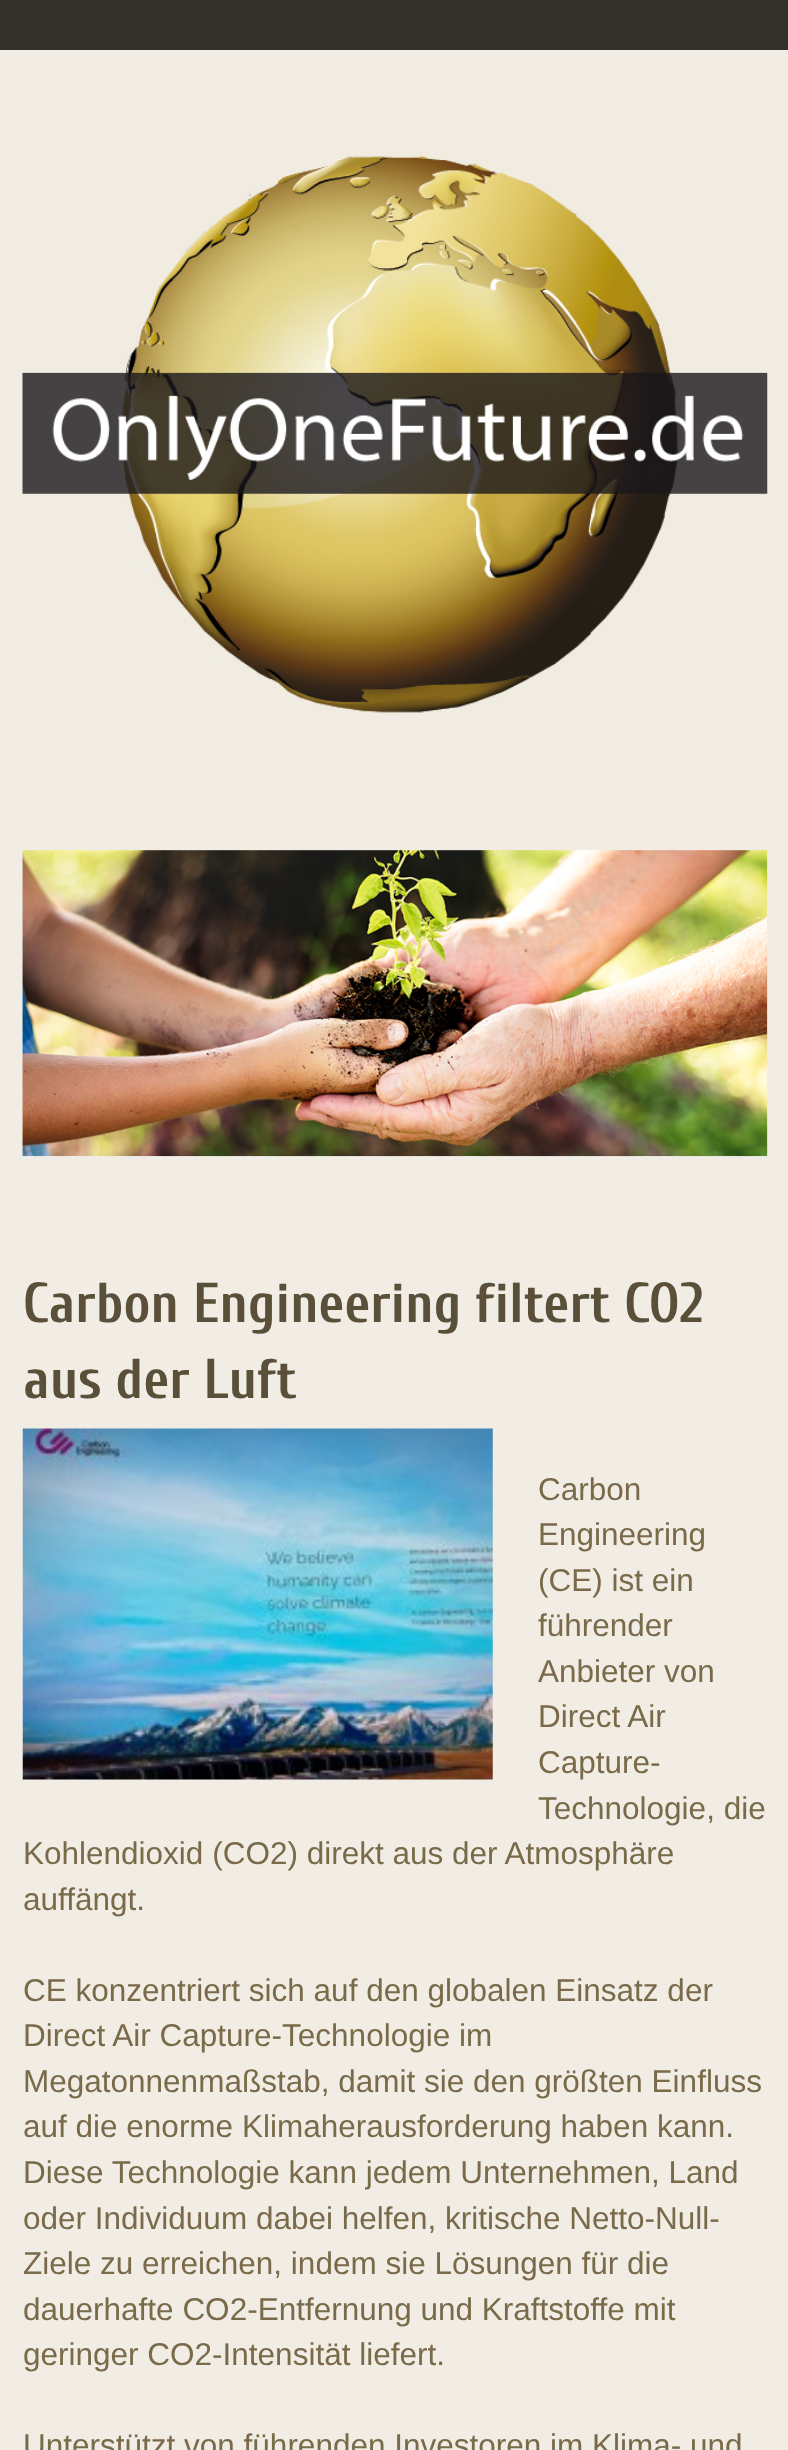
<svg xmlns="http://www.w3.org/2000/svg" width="788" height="2450">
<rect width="100%" height="100%" fill="#f1ede4"/>
<rect width="788" height="50" fill="#33312b"/>
<image x="22" y="150" width="746" height="567" href="media/1.png"/>
<image x="22" y="850" width="746" height="306" href="media/2.png"/>
<rect x="23" y="1156" width="744" height="1" fill="#eee"/>
<image x="22" y="850" width="746" height="307" href="media/3.png"/>
<text x="23" y="1322" style="font-family:Cuprum;font-size:56.25px;font-weight:bold;fill:#5a5039">Carbon Engineering filtert CO2</text>
<text x="23" y="1398" style="font-family:Cuprum;font-size:56.25px;font-weight:bold;fill:#5a5039">aus der Luft</text>
<image x="22" y="1428" width="471" height="352" href="media/4.png"/>
<text x="538" y="1500" style="font-family:Liberation Sans;font-size:31.5px;fill:#796a49">Carbon</text>
<text x="538" y="1545" style="font-family:Liberation Sans;font-size:31.5px;fill:#796a49">Engineering</text>
<text x="538" y="1591" style="font-family:Liberation Sans;font-size:31.5px;fill:#796a49">(CE) ist ein</text>
<text x="538" y="1636" style="font-family:Liberation Sans;font-size:31.5px;fill:#796a49">führender</text>
<text x="538" y="1682" style="font-family:Liberation Sans;font-size:31.5px;fill:#796a49">Anbieter von</text>
<text x="538" y="1727" style="font-family:Liberation Sans;font-size:31.5px;fill:#796a49">Direct Air</text>
<text x="538" y="1773" style="font-family:Liberation Sans;font-size:31.5px;fill:#796a49">Capture-</text>
<text x="538" y="1819" style="font-family:Liberation Sans;font-size:31.5px;fill:#796a49">Technologie, die</text>
<text x="23" y="1864" style="font-family:Liberation Sans;font-size:31.5px;fill:#796a49">Kohlendioxid (CO2) direkt aus der Atmosphäre</text>
<text x="23" y="1910" style="font-family:Liberation Sans;font-size:31.5px;fill:#796a49">auffängt.</text>
<text x="23" y="2001" style="font-family:Liberation Sans;font-size:31.5px;fill:#796a49">CE konzentriert sich auf den globalen Einsatz der</text>
<text x="23" y="2046" style="font-family:Liberation Sans;font-size:31.5px;fill:#796a49">Direct Air Capture-Technologie im</text>
<text x="23" y="2092" style="font-family:Liberation Sans;font-size:31.5px;fill:#796a49">Megatonnenmaßstab, damit sie den größten Einfluss</text>
<text x="23" y="2137" style="font-family:Liberation Sans;font-size:31.5px;fill:#796a49">auf die enorme Klimaherausforderung haben kann.</text>
<text x="23" y="2183" style="font-family:Liberation Sans;font-size:31.5px;fill:#796a49">Diese Technologie kann jedem Unternehmen, Land</text>
<text x="23" y="2229" style="font-family:Liberation Sans;font-size:31.5px;fill:#796a49">oder Individuum dabei helfen, kritische Netto-Null-</text>
<text x="23" y="2274" style="font-family:Liberation Sans;font-size:31.5px;fill:#796a49">Ziele zu erreichen, indem sie Lösungen für die</text>
<text x="23" y="2320" style="font-family:Liberation Sans;font-size:31.5px;fill:#796a49">dauerhafte CO2-Entfernung und Kraftstoffe mit</text>
<text x="23" y="2365" style="font-family:Liberation Sans;font-size:31.5px;fill:#796a49">geringer CO2-Intensität liefert.</text>
<text x="23" y="2456" style="font-family:Liberation Sans;font-size:31.5px;fill:#796a49">Unterstützt von führenden Investoren im Klima- und</text>
</svg>
